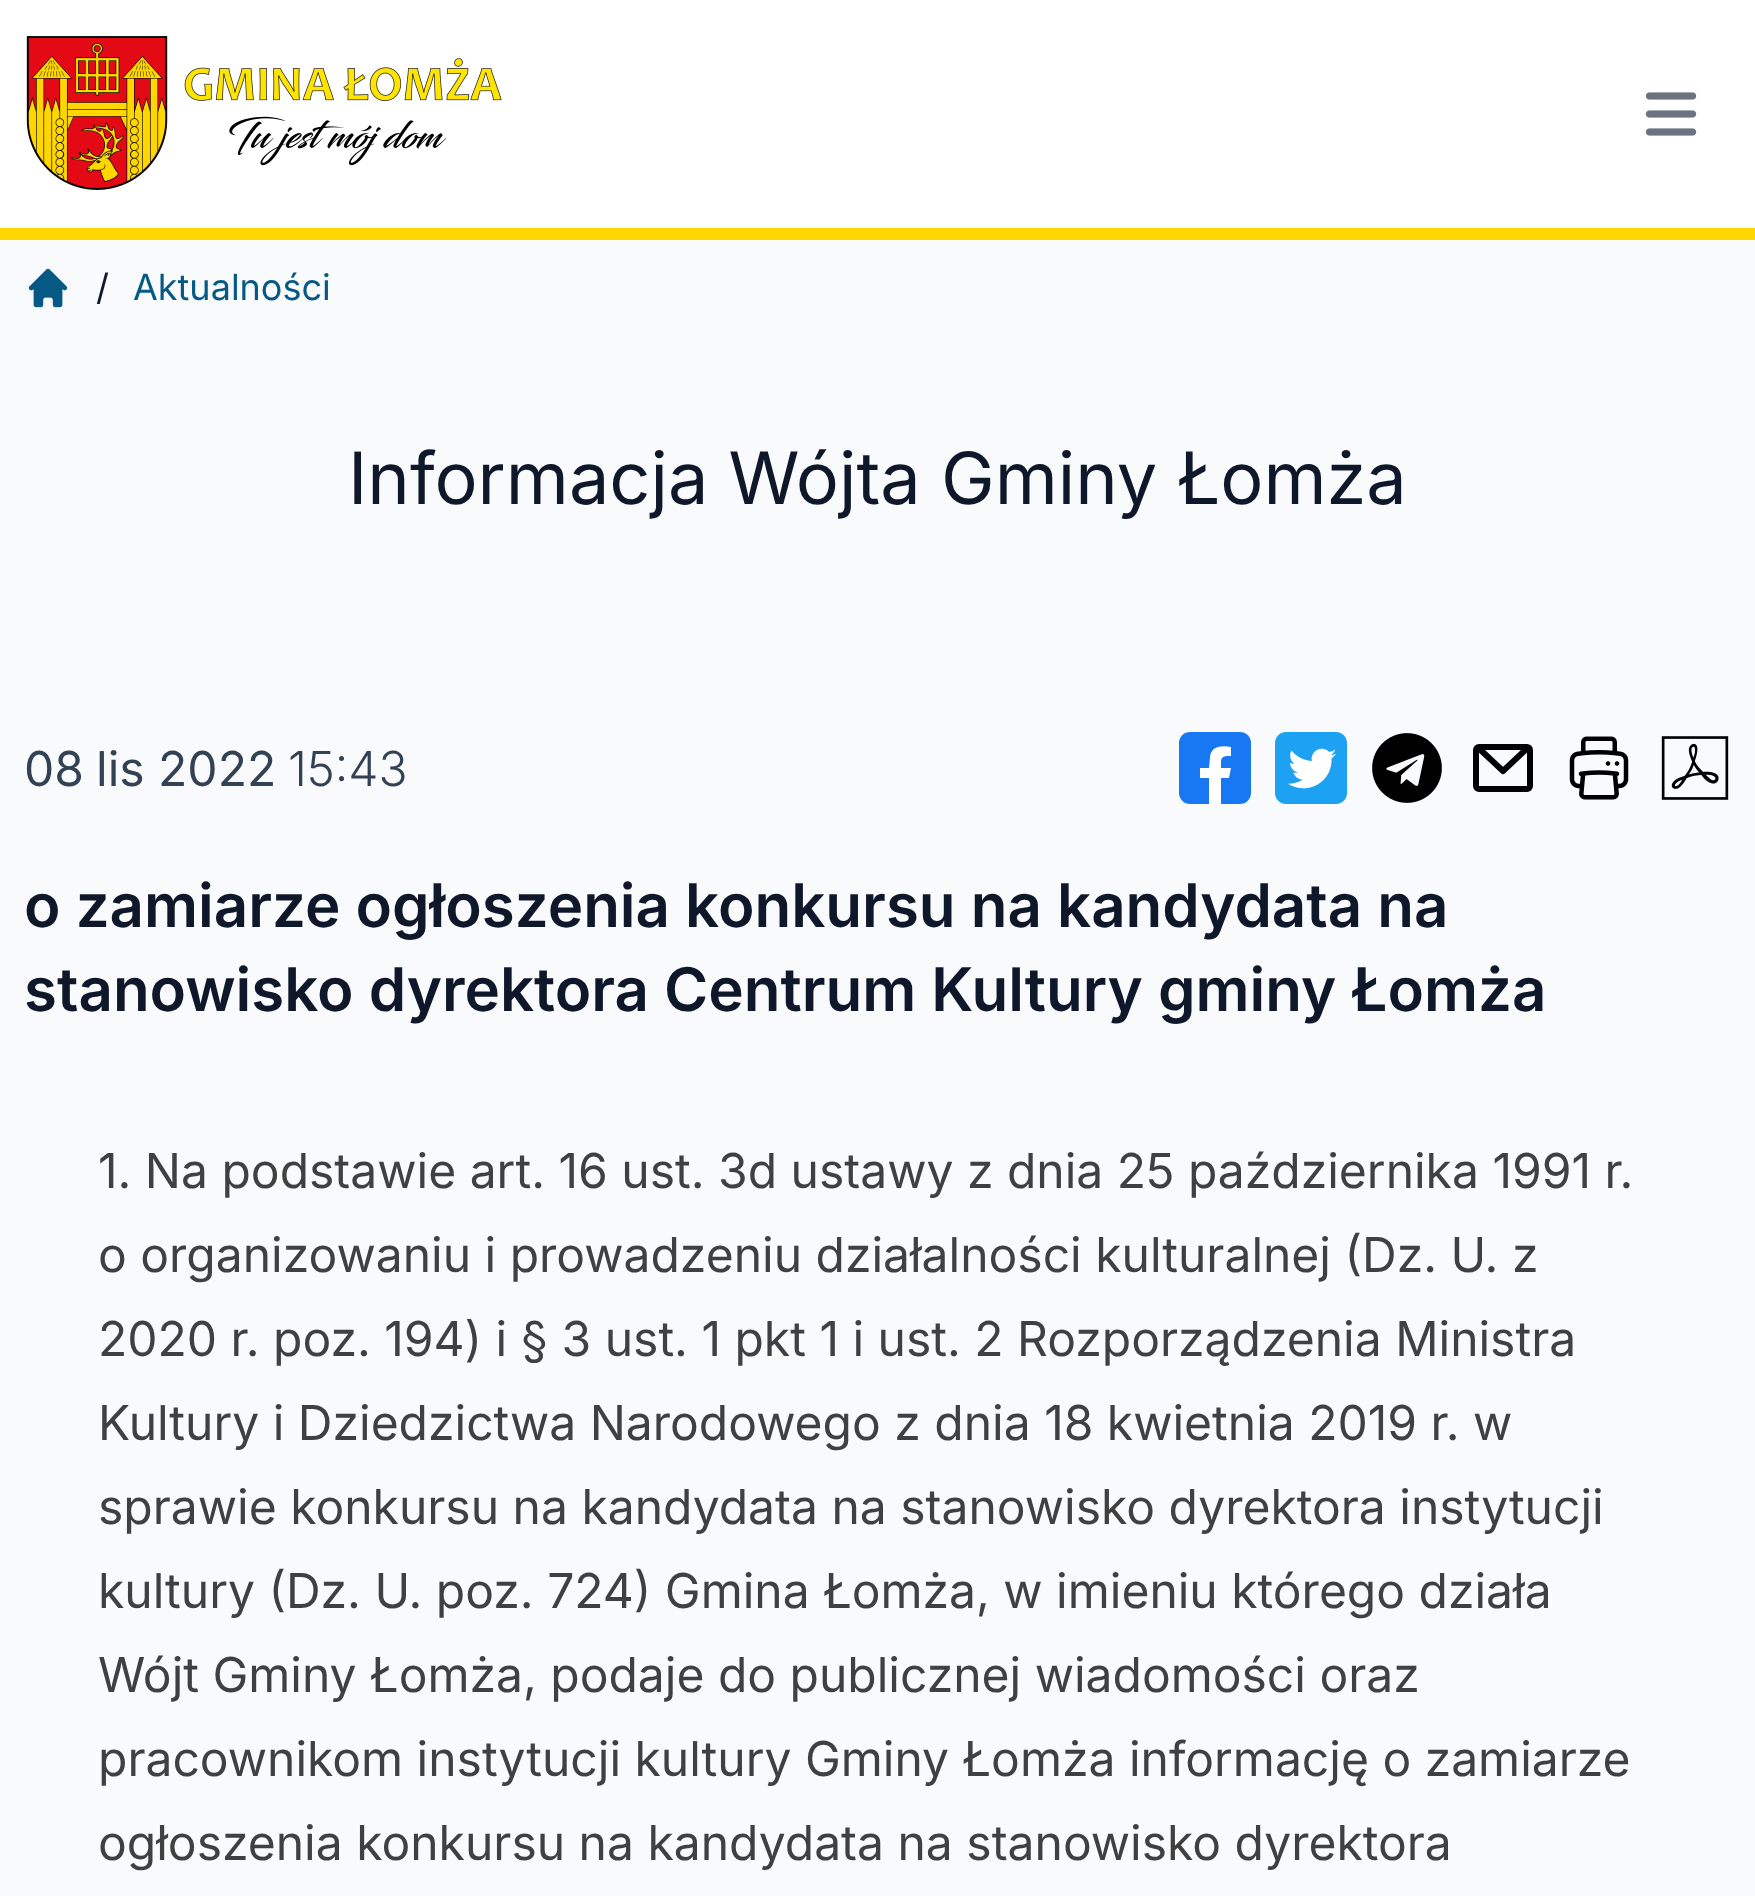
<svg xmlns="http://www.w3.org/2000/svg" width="1755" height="1896">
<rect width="100%" height="100%" fill="#f9fafb"/>
<rect width="1755" height="228" fill="#fff"/>
<rect y="228" width="1755" height="12" fill="#ffd500"/>
<image x="26" y="36" width="476" height="154" href="media/1.png"/>
<image x="1645" y="92" width="52" height="44" href="media/2.png"/>
<image x="28" y="268" width="40" height="40" href="media/3.png"/>
<text x="96" y="300" style="font-family:Inter;font-size:36px;fill:#0f172a">/</text>
<text x="133" y="300" style="font-family:Inter;font-size:36px;fill:#075985">Aktualności</text>
<text x="348" y="504" style="font-family:Inter;font-size:72px;fill:#0f172a">Informacja Wójta Gminy Łomża</text>
<text x="24" y="786" style="font-family:Inter;font-size:48px;fill:#334155">08</text>
<text x="96" y="786" style="font-family:Inter;font-size:48px;fill:#334155">lis 2022</text>
<text x="288" y="786" style="font-family:Inter;font-size:48px;font-weight:300;fill:#334155">15:43</text>
<rect x="1179" y="732" width="72" height="72" rx="11" fill="#1877f2"/>
<path d="M1229 778l2-10h-10c0-10-1-12 10-12v-9c-9-2-20-1-21 10l-1 11h-9v10h9v26h12v-26z" fill="#fff"/>
<image x="1275" y="732" width="72" height="72" href="media/4.png"/>
<image x="1372" y="733" width="70" height="70" href="media/5.png"/>
<rect x="1476" y="747" width="54" height="42" rx="3" fill="none" stroke="#000" stroke-width="6"/>
<path d="M1527 748.5l-24 22.5l-24-22.5" fill="none" stroke="#000" stroke-width="6" stroke-linecap="round" stroke-linejoin="round"/>
<image x="1569" y="736" width="60" height="64" href="media/6.png"/>
<image x="1661" y="736" width="68" height="64" href="media/7.png"/>
<text x="24" y="927" style="font-family:Inter;font-size:60px;font-weight:600;fill:#0f172a">o zamiarze ogłoszenia konkursu na kandydata na</text>
<text x="24" y="1011" style="font-family:Inter;font-size:60px;font-weight:600;fill:#0f172a">stanowisko dyrektora Centrum Kultury gminy Łomża</text>
<text x="98" y="1188" style="font-family:Inter;font-size:48px;fill:#404040">1. Na podstawie art. 16 ust. 3d ustawy z dnia 25 października 1991 r.</text>
<text x="98" y="1272" style="font-family:Inter;font-size:48px;fill:#404040">o organizowaniu i prowadzeniu działalności kulturalnej (Dz. U. z</text>
<text x="98" y="1356" style="font-family:Inter;font-size:48px;fill:#404040">2020 r. poz. 194) i § 3 ust. 1 pkt 1 i ust. 2 Rozporządzenia Ministra</text>
<text x="98" y="1440" style="font-family:Inter;font-size:48px;fill:#404040">Kultury i Dziedzictwa Narodowego z dnia 18 kwietnia 2019 r. w</text>
<text x="98" y="1524" style="font-family:Inter;font-size:48px;fill:#404040">sprawie konkursu na kandydata na stanowisko dyrektora instytucji</text>
<text x="98" y="1608" style="font-family:Inter;font-size:48px;fill:#404040">kultury (Dz. U. poz. 724) Gmina Łomża, w imieniu którego działa</text>
<text x="98" y="1692" style="font-family:Inter;font-size:48px;fill:#404040">Wójt Gminy Łomża, podaje do publicznej wiadomości oraz</text>
<text x="98" y="1776" style="font-family:Inter;font-size:48px;fill:#404040">pracownikom instytucji kultury Gminy Łomża informację o zamiarze</text>
<text x="98" y="1860" style="font-family:Inter;font-size:48px;fill:#404040">ogłoszenia konkursu na kandydata na stanowisko dyrektora</text>
</svg>
